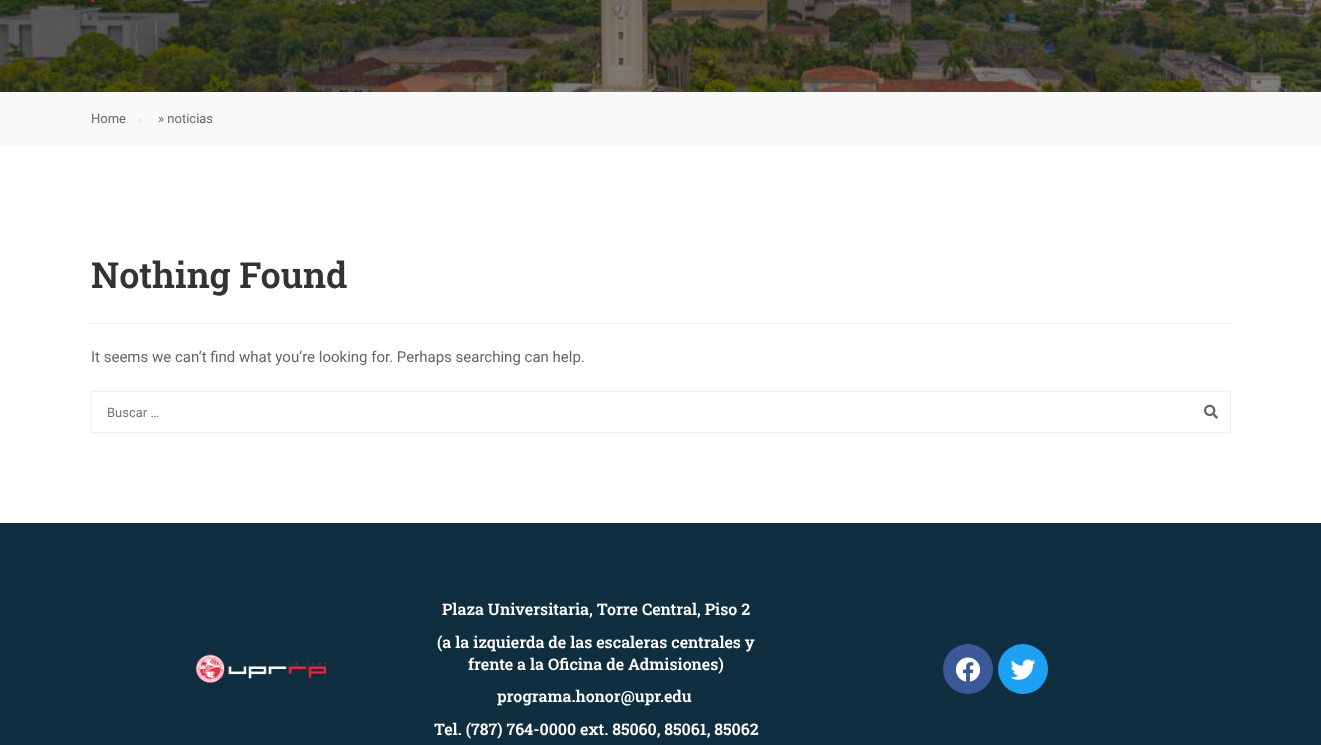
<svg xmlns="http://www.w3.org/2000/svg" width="1321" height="745">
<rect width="100%" height="100%" fill="#fff"/>
<image x="0" y="0" width="1321" height="92" href="media/1.png"/>
<rect x="91" width="3" height="2" fill="#e70033"/>
<rect y="92" width="1321" height="54" fill="#f9f9f9"/>
<text x="91" y="123" style="font-family:Roboto;font-size:13px;fill:#666">Home</text>
<circle cx="139.5" cy="120.5" r="2.5" fill="#eee"/>
<text x="158" y="123" style="font-family:Roboto;font-size:13px;fill:#666">» noticias</text>
<rect x="91" y="323" width="1140" height="1" fill="#eee"/>
<text x="91" y="288" style="font-family:Roboto Slab;font-size:36px;font-weight:600;fill:#333">Nothing Found</text>
<text x="91" y="362" style="font-family:Roboto;font-size:15px;fill:#666">It seems we can’t find what you’re looking for. Perhaps searching can help.</text>
<rect x="91.5" y="391.5" width="1139" height="41" fill="none" stroke="#eee"/>
<text x="107" y="417" style="font-family:Roboto;font-size:13px;fill:#757575">Buscar …</text>
<image x="1204" y="404" width="14" height="15" href="media/2.png"/>
<rect y="523" width="1321" height="222" fill="#0f2f40"/>
<image x="195" y="654" width="132" height="30" href="media/3.png"/>
<text x="442" y="615" style="font-family:Roboto Slab;font-size:16px;font-weight:600;fill:#fff">Plaza Universitaria, Torre Central, Piso 2</text>
<text x="437" y="648" style="font-family:Roboto Slab;font-size:16px;font-weight:600;fill:#fff">(a la izquierda de las escaleras centrales y</text>
<text x="468" y="670" style="font-family:Roboto Slab;font-size:16px;font-weight:600;fill:#fff">frente a la Oficina de Admisiones)</text>
<text x="497" y="702" style="font-family:Roboto Slab;font-size:16px;font-weight:600;fill:#fff">programa.honor@upr.edu</text>
<text x="434" y="735" style="font-family:Roboto Slab;font-size:16px;font-weight:600;fill:#fff">Tel. (787) 764-0000 ext. 85060, 85061, 85062</text>
<circle cx="968" cy="669" r="25" fill="#3b5998"/>
<image x="955" y="657" width="26" height="25" href="media/4.png"/>
<circle cx="1023" cy="669" r="25" fill="#1da1f2"/>
<image x="1010" y="659" width="26" height="21" href="media/5.png"/>
</svg>
